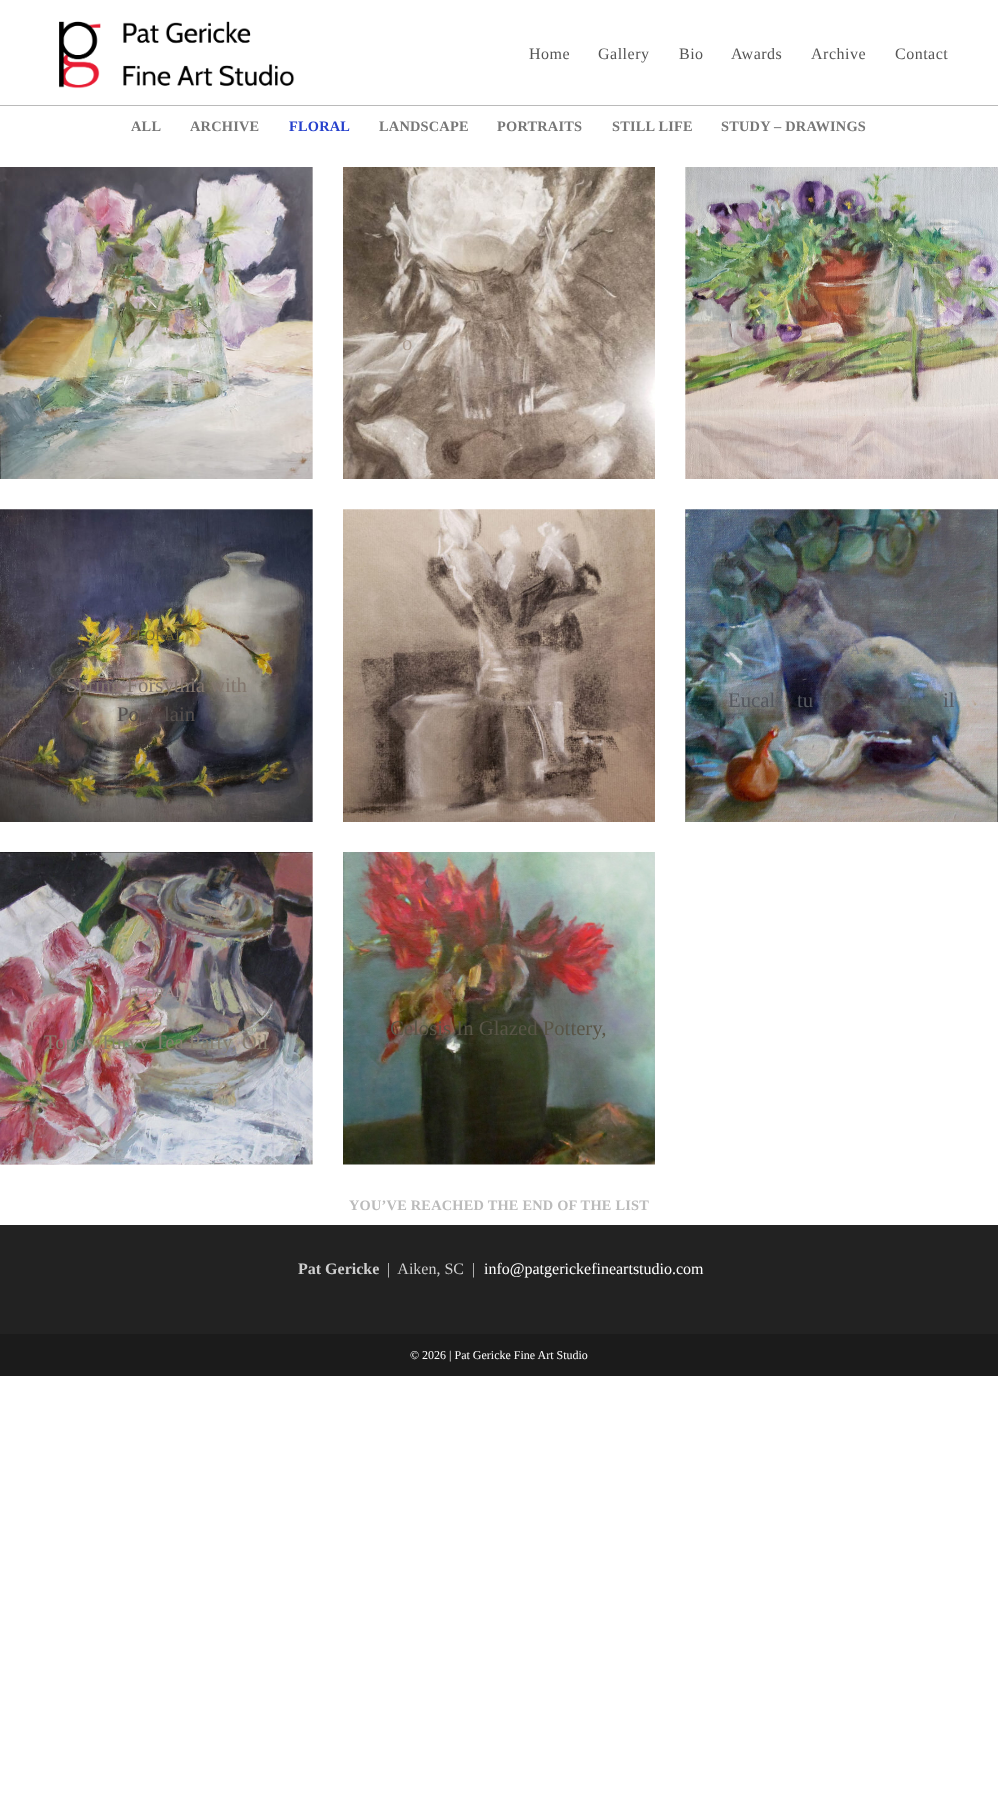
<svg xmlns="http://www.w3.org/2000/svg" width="998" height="1799">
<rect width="100%" height="100%" fill="#fff"/>
<rect y="105" width="998" height="1" fill="#bababa"/>
<image x="59" y="21" width="236" height="68" href="media/1.png"/>
<text x="529" y="59" style="font-family:Liberation Serif;font-size:16px;letter-spacing:0.5px;fill:#555">Home</text>
<text x="598" y="59" style="font-family:Liberation Serif;font-size:16px;letter-spacing:0.5px;fill:#555">Gallery</text>
<text x="679" y="59" style="font-family:Liberation Serif;font-size:16px;letter-spacing:0.5px;fill:#555">Bio</text>
<text x="731" y="59" style="font-family:Liberation Serif;font-size:16px;letter-spacing:0.5px;fill:#555">Awards</text>
<text x="811" y="59" style="font-family:Liberation Serif;font-size:16px;letter-spacing:0.5px;fill:#555">Archive</text>
<text x="895" y="59" style="font-family:Liberation Serif;font-size:16px;letter-spacing:0.5px;fill:#555">Contact</text>
<text x="131" y="131" style="font-family:Liberation Serif;font-size:14.4px;font-weight:bold;letter-spacing:0.2px;fill:#777">ALL</text>
<text x="190" y="131" style="font-family:Liberation Serif;font-size:14.4px;font-weight:bold;letter-spacing:0.2px;fill:#777">ARCHIVE</text>
<text x="289" y="131" style="font-family:Liberation Serif;font-size:14.4px;font-weight:bold;letter-spacing:0.2px;fill:#2540cc">FLORAL</text>
<text x="379" y="131" style="font-family:Liberation Serif;font-size:14.4px;font-weight:bold;letter-spacing:0.2px;fill:#777">LANDSCAPE</text>
<text x="497" y="131" style="font-family:Liberation Serif;font-size:14.4px;font-weight:bold;letter-spacing:0.2px;fill:#777">PORTRAITS</text>
<text x="612" y="131" style="font-family:Liberation Serif;font-size:14.4px;font-weight:bold;letter-spacing:0.2px;fill:#777">STILL LIFE</text>
<text x="721" y="131" style="font-family:Liberation Serif;font-size:14.4px;font-weight:bold;letter-spacing:0.2px;fill:#777">STUDY – DRAWINGS</text>
<image x="0" y="167" width="313" height="312" href="media/2.png"/>
<text x="136" y="312" style="font-family:Liberation Serif;font-size:14.4px;fill:#96987c">L</text>
<image x="685" y="167" width="313" height="312" href="media/3.png"/>
<image x="343" y="167" width="312" height="312" href="media/4.png"/>
<text x="402" y="350" style="font-family:Liberation Serif;font-size:20.75px;fill:#ac9d90">o</text>
<image x="0" y="509" width="313" height="313" href="media/5.png"/>
<text x="128" y="640" style="font-family:Liberation Serif;font-size:14.4px;fill:#786c34">FLORAL</text>
<text x="66" y="692" style="font-family:Liberation Serif;font-size:20.75px;fill:#82766d">Spring Forsythia with</text>
<text x="117" y="721" style="font-family:Liberation Serif;font-size:20.75px;fill:#56504e">Po</text>
<text x="164" y="721" style="font-family:Liberation Serif;font-size:20.75px;fill:#56504e">lain</text>
<image x="343" y="509" width="312" height="313" href="media/6.png"/>
<image x="685" y="509" width="313" height="313" href="media/7.png"/>
<text x="850" y="654" style="font-family:Liberation Serif;font-size:14.4px;fill:#7d808a">A</text>
<text x="728" y="707" style="font-family:Liberation Serif;font-size:20.75px;fill:#55585f">Eucal</text>
<text x="797" y="707" style="font-family:Liberation Serif;font-size:20.75px;fill:#55585f">tu</text>
<text x="943" y="707" style="font-family:Liberation Serif;font-size:20.75px;fill:#55585f">il</text>
<image x="0" y="852" width="313" height="313" href="media/8.png"/>
<text x="128" y="997" style="font-family:Liberation Serif;font-size:14.4px;fill:#a38e91">FLORAL</text>
<text x="44" y="1049" style="font-family:Liberation Serif;font-size:20.75px;fill:#877f70">Topsy Turvy Tea Party, Oil</text>
<image x="343" y="852" width="312" height="313" href="media/9.png"/>
<text x="390" y="1035" style="font-family:Liberation Serif;font-size:20.75px;fill:#595547">Celosis In Glazed Pottery,</text>
<text x="349" y="1210" style="font-family:Liberation Serif;font-size:14.4px;font-weight:bold;letter-spacing:0.2px;fill:#bbb">YOU’VE REACHED THE END OF THE LIST</text>
<rect y="1225" width="998" height="109" fill="#222"/>
<text x="298" y="1274" style="font-family:Liberation Serif;font-size:16px;font-weight:bold;fill:#cecece">Pat Gericke</text>
<text x="387" y="1274" style="font-family:Liberation Serif;font-size:16px;fill:#cecece" xml:space="preserve">|  Aiken, SC  |</text>
<text x="484" y="1274" style="font-family:Liberation Serif;font-size:16px;fill:#fff">info@patgerickefineartstudio.com</text>
<rect y="1334" width="998" height="42" fill="#1b1b1b"/>
<text x="410" y="1359" style="font-family:Liberation Serif;font-size:12px;fill:#fff">© 2026 | Pat Gericke Fine Art Studio</text>
</svg>
